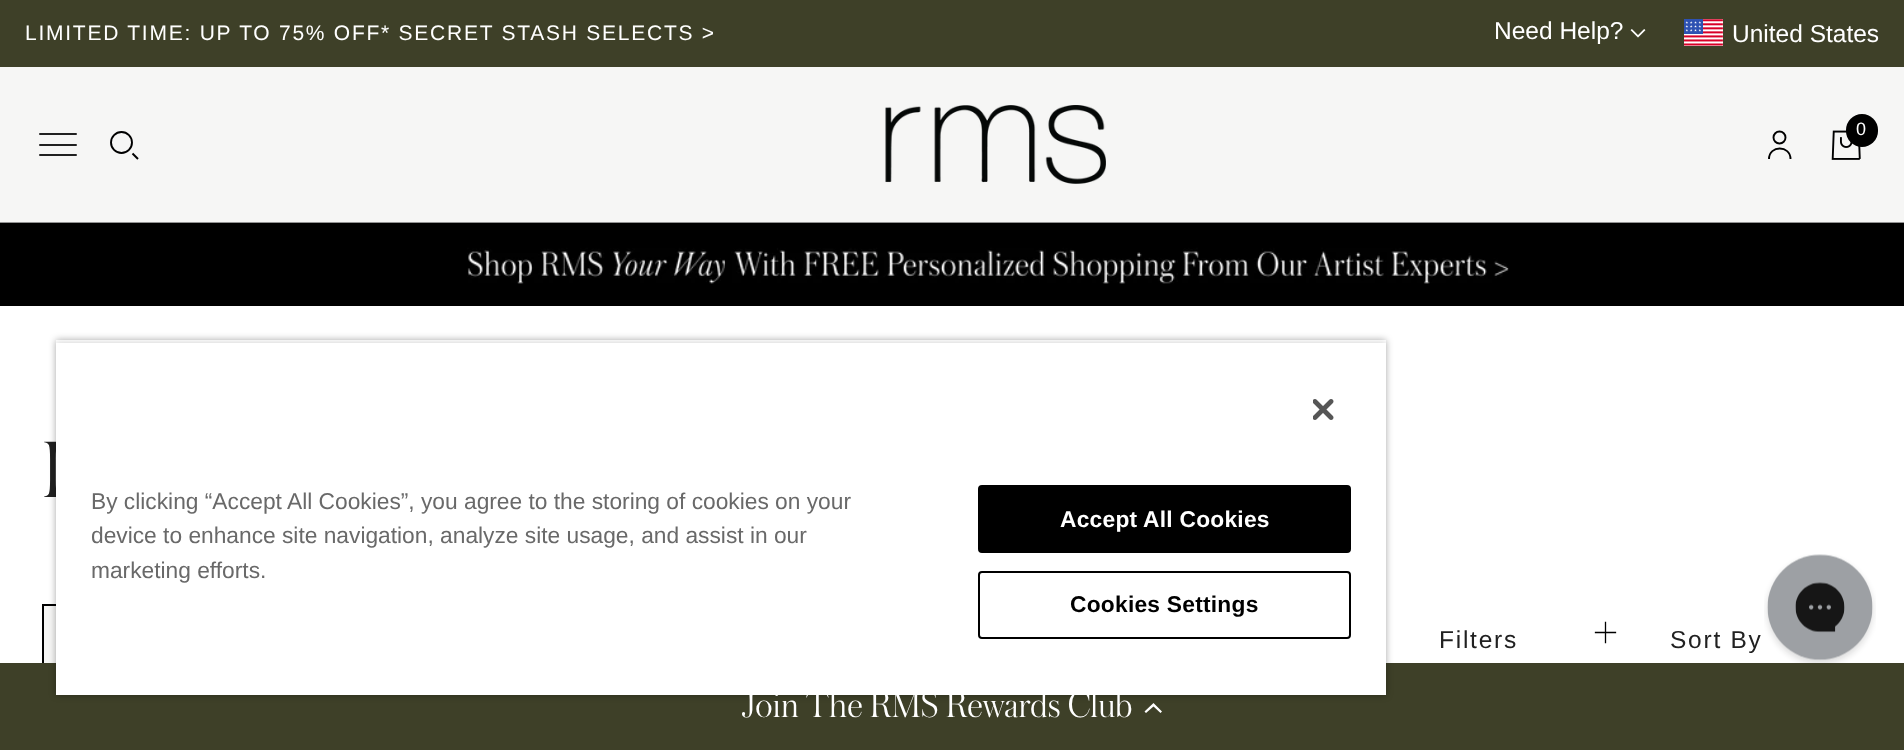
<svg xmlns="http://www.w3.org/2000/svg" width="1904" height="750">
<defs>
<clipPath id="clip1"><path d="M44 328h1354v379h-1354zm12 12h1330v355h-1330z" clip-rule="evenodd"/></clipPath>
<clipPath id="clip2"><rect x="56" y="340" width="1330" height="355"/></clipPath>
</defs>
<rect width="100%" height="100%" fill="#fff"/>
<rect width="1904" height="67" fill="#3e4028"/>
<text x="25" y="40" style="font-family:Liberation Sans;font-size:21px;letter-spacing:1.75px;fill:#fff">LIMITED TIME: UP TO 75% OFF* SECRET STASH SELECTS &gt;</text>
<text x="1494" y="39" style="font-family:Liberation Sans;font-size:24.5px;fill:#fff">Need Help?</text>
<image x="1630" y="29" width="16" height="9" href="media/1.png"/>
<image x="1684" y="19" width="39" height="27" href="media/2.png"/>
<text x="1732" y="42" style="font-family:Liberation Sans;font-size:24.5px;fill:#fff">United States</text>
<rect y="67" width="1904" height="155" fill="#f6f6f5"/>
<image x="885" y="105" width="221" height="79" href="media/3.png"/>
<circle cx="1779.5" cy="137.5" r="6" fill="none" stroke="#000" stroke-width="1.9"/>
<path d="M1769 159c0-14 21.5-14 21.5 0" fill="none" stroke="#000" stroke-width="1.9"/>
<image x="1831" y="130" width="30" height="30" href="media/4.png"/>
<rect x="1846" y="114" width="32" height="33" rx="16" fill="#000"/>
<text x="1856" y="135" style="font-family:Liberation Sans;font-size:18px;letter-spacing:1.75px;fill:#fff">0</text>
<rect x="39" y="133" width="38" height="2" rx="1" fill="#212121"/>
<rect x="39" y="144" width="38" height="2" rx="1" fill="#212121"/>
<rect x="39" y="154" width="38" height="2" rx="1" fill="#212121"/>
<circle cx="121.5" cy="142.5" r="10.5" fill="none" stroke="#000" stroke-width="1.9"/>
<path d="M132.5 153.5l5.5 5.5" fill="none" stroke="#000" stroke-width="1.9"/>
<image x="0" y="222" width="1904" height="84" href="media/5.png"/>
<text x="42" y="497" style="font-family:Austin;font-size:84px;font-weight:300;fill:#212121">I</text>
<rect x="44" y="606" width="12" height="57" fill="#f6f6f5"/>
<rect x="43" y="605" width="126" height="68" fill="none" stroke="#000" stroke-width="2"/>
<text x="1439" y="648" style="font-family:Liberation Sans;font-size:24.5px;letter-spacing:1.75px;fill:#212121">Filters</text>
<path d="M1605.5 622.5v20m-10-10h20" fill="none" stroke="#000" stroke-width="1.3" stroke-linecap="square"/>
<text x="1670" y="648" style="font-family:Liberation Sans;font-size:24.5px;letter-spacing:1.75px;fill:#212121">Sort By</text>
<rect y="663" width="1904" height="87" fill="#3e4028"/>
<path d="M1153.5 706.5l-7.5 6.5l-1.5-1.5l9-8.5l8.5 8.5l-1.5 1.5z" fill="#fff"/>
<g clip-path="url(#clip1)">
<rect x="56" y="340" width="1330" height="355" fill="#00000059" filter="blur(3.5px)"/>
</g>
<g clip-path="url(#clip2)">
<rect x="56" y="343" width="1330" height="352" fill="#00000033" filter="blur(3.5px)"/>
</g>
<rect x="56" y="343" width="1330" height="352" fill="#fff"/>
<image x="1313" y="399" width="21" height="21" href="media/6.png"/>
<text x="91" y="509" style="font-family:Liberation Sans;font-size:22.75px;fill:#696969">By clicking “Accept All Cookies”, you agree to the storing of cookies on your</text>
<text x="91" y="543" style="font-family:Liberation Sans;font-size:22.75px;fill:#696969">device to enhance site navigation, analyze site usage, and assist in our</text>
<text x="91" y="578" style="font-family:Liberation Sans;font-size:22.75px;fill:#696969">marketing efforts.</text>
<rect x="979" y="486" width="371" height="66" rx="3" fill="#000" stroke="#000" stroke-width="2"/>
<text x="1060" y="527" style="font-family:Liberation Sans;font-size:22.75px;font-weight:bold;letter-spacing:0.25px;fill:#fff">Accept All Cookies</text>
<rect x="979" y="572" width="371" height="66" rx="3" fill="none" stroke="#000" stroke-width="2"/>
<text x="1070" y="612" style="font-family:Liberation Sans;font-size:22.75px;font-weight:bold;letter-spacing:0.25px;fill:#000">Cookies Settings</text>
<image x="1764" y="554" width="112" height="109" href="media/7.png"/>
<text x="741" y="717" style="font-family:Austin;font-size:38.5px;font-weight:300;fill:#fff">Join The RMS Rewards Club</text>
</svg>
